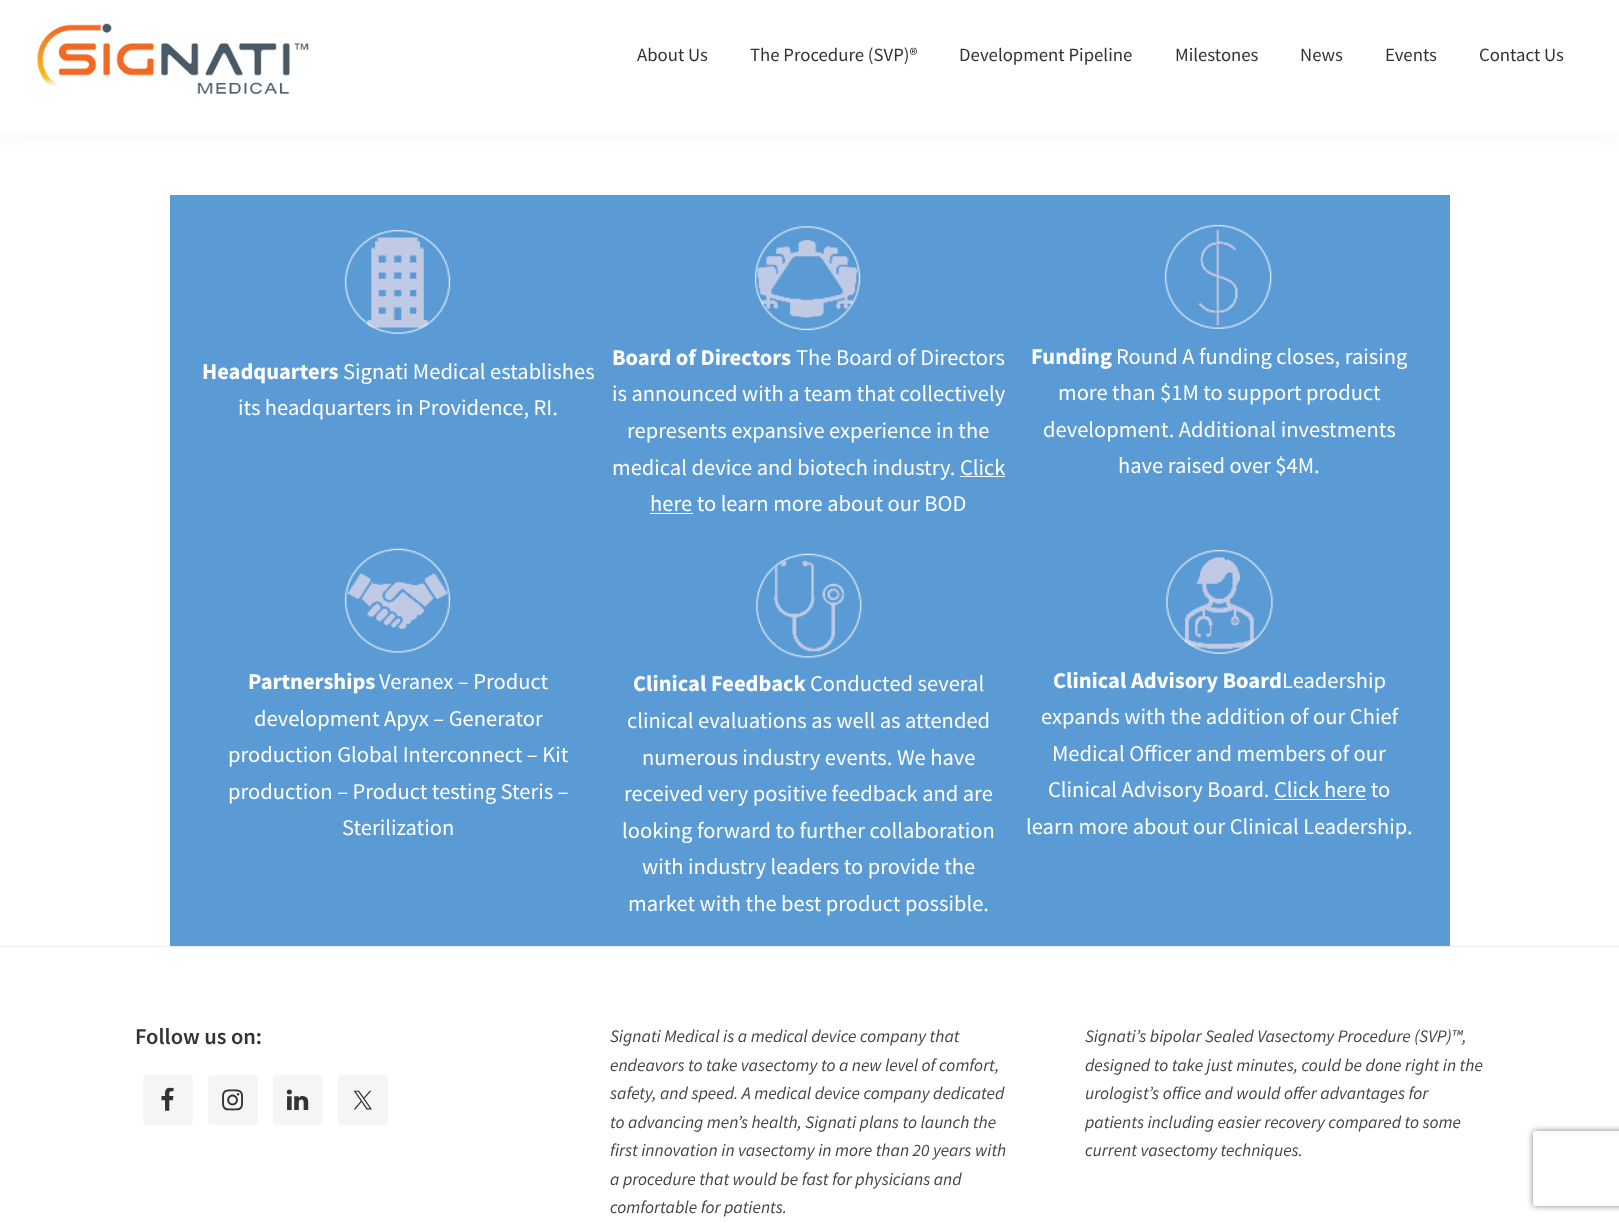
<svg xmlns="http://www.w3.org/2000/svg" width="1619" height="1223">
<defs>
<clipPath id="clip1"><path d="M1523 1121h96v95h-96zm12.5 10h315c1.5 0 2.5 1 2.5 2.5v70c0 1.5-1 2.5-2.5 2.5h-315c-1.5 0-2.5-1-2.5-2.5v-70c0-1.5 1-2.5 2.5-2.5z" clip-rule="evenodd"/></clipPath>
</defs>
<rect width="100%" height="100%" fill="#fff"/>
<rect width="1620" height="133" fill="#0000000d" filter="blur(12.5px)"/>
<rect width="1619" height="133" fill="#fff"/>
<image x="37" y="23" width="272" height="71" href="media/1.png"/>
<text x="637" y="61" style="font-family:Source Sans Pro;font-size:18.75px;fill:#333">About Us</text>
<text x="750" y="61" style="font-family:Source Sans Pro;font-size:18.75px;fill:#333">The Procedure (SVP)®</text>
<text x="959" y="61" style="font-family:Source Sans Pro;font-size:18.75px;fill:#333">Development Pipeline</text>
<text x="1175" y="61" style="font-family:Source Sans Pro;font-size:18.75px;fill:#333">Milestones</text>
<text x="1300" y="61" style="font-family:Source Sans Pro;font-size:18.75px;fill:#333">News</text>
<text x="1385" y="61" style="font-family:Source Sans Pro;font-size:18.75px;fill:#333">Events</text>
<text x="1479" y="61" style="font-family:Source Sans Pro;font-size:18.75px;fill:#333">Contact Us</text>
<rect x="170" y="195" width="1280" height="751" fill="#5b9bd5"/>
<image x="344" y="229" width="107" height="105" href="media/2.png"/>
<text x="202" y="379" style="font-family:Source Sans Pro;font-size:22.5px;font-weight:bold;fill:#fff">Headquarters</text>
<text x="343" y="379" style="font-family:Source Sans Pro;font-size:22.5px;fill:#fff">Signati Medical establishes</text>
<text x="238" y="415" style="font-family:Source Sans Pro;font-size:22.5px;fill:#fff">its headquarters in Providence, RI.</text>
<image x="754" y="226" width="107" height="105" href="media/3.png"/>
<text x="612" y="365" style="font-family:Source Sans Pro;font-size:22.5px;font-weight:bold;fill:#fff">Board of Directors</text>
<text x="796" y="365" style="font-family:Source Sans Pro;font-size:22.5px;fill:#fff">The Board of Directors</text>
<text x="612" y="401" style="font-family:Source Sans Pro;font-size:22.5px;fill:#fff">is announced with a team that collectively</text>
<text x="627" y="438" style="font-family:Source Sans Pro;font-size:22.5px;fill:#fff">represents expansive experience in the</text>
<text x="612" y="475" style="font-family:Source Sans Pro;font-size:22.5px;fill:#fff">medical device and biotech industry. Click</text>
<text x="650" y="511" style="font-family:Source Sans Pro;font-size:22.5px;fill:#fff">here to learn more about our BOD</text>
<rect x="960" y="476" width="45" height="1" fill="#fff"/>
<rect x="650" y="513" width="43" height="1" fill="#fff"/>
<image x="1164" y="224" width="108" height="105" href="media/4.png"/>
<text x="1031" y="364" style="font-family:Source Sans Pro;font-size:22.5px;font-weight:bold;fill:#fff">Funding</text>
<text x="1116" y="364" style="font-family:Source Sans Pro;font-size:22.5px;fill:#fff">Round A funding closes, raising</text>
<text x="1058" y="400" style="font-family:Source Sans Pro;font-size:22.5px;fill:#fff">more than $1M to support product</text>
<text x="1043" y="437" style="font-family:Source Sans Pro;font-size:22.5px;fill:#fff">development. Additional investments</text>
<text x="1118" y="473" style="font-family:Source Sans Pro;font-size:22.5px;fill:#fff">have raised over $4M.</text>
<image x="344" y="548" width="107" height="105" href="media/5.png"/>
<text x="248" y="689" style="font-family:Source Sans Pro;font-size:22.5px;font-weight:bold;fill:#fff">Partnerships</text>
<text x="379" y="689" style="font-family:Source Sans Pro;font-size:22.5px;fill:#fff">Veranex – Product</text>
<text x="254" y="726" style="font-family:Source Sans Pro;font-size:22.5px;fill:#fff">development Apyx – Generator</text>
<text x="228" y="762" style="font-family:Source Sans Pro;font-size:22.5px;fill:#fff">production Global Interconnect – Kit</text>
<text x="228" y="799" style="font-family:Source Sans Pro;font-size:22.5px;fill:#fff">production – Product testing Steris –</text>
<text x="342" y="835" style="font-family:Source Sans Pro;font-size:22.5px;fill:#fff">Sterilization</text>
<image x="756" y="553" width="106" height="105" href="media/6.png"/>
<text x="633" y="691" style="font-family:Source Sans Pro;font-size:22.5px;font-weight:bold;fill:#fff">Clinical Feedback</text>
<text x="810" y="691" style="font-family:Source Sans Pro;font-size:22.5px;fill:#fff">Conducted several</text>
<text x="627" y="728" style="font-family:Source Sans Pro;font-size:22.5px;fill:#fff">clinical evaluations as well as attended</text>
<text x="642" y="765" style="font-family:Source Sans Pro;font-size:22.5px;fill:#fff">numerous industry events. We have</text>
<text x="624" y="801" style="font-family:Source Sans Pro;font-size:22.5px;fill:#fff">received very positive feedback and are</text>
<text x="622" y="838" style="font-family:Source Sans Pro;font-size:22.5px;fill:#fff">looking forward to further collaboration</text>
<text x="642" y="874" style="font-family:Source Sans Pro;font-size:22.5px;fill:#fff">with industry leaders to provide the</text>
<text x="628" y="911" style="font-family:Source Sans Pro;font-size:22.5px;fill:#fff">market with the best product possible.</text>
<image x="1166" y="549" width="107" height="105" href="media/7.png"/>
<text x="1053" y="688" style="font-family:Source Sans Pro;font-size:22.5px;font-weight:bold;fill:#fff">Clinical Advisory Board</text>
<text x="1282" y="688" style="font-family:Source Sans Pro;font-size:22.5px;fill:#fff">Leadership</text>
<text x="1041" y="724" style="font-family:Source Sans Pro;font-size:22.5px;fill:#fff">expands with the addition of our Chief</text>
<text x="1052" y="761" style="font-family:Source Sans Pro;font-size:22.5px;fill:#fff">Medical Officer and members of our</text>
<text x="1048" y="797" style="font-family:Source Sans Pro;font-size:22.5px;fill:#fff">Clinical Advisory Board. Click here to</text>
<rect x="1274" y="799" width="92" height="1" fill="#fff"/>
<text x="1026" y="834" style="font-family:Source Sans Pro;font-size:22.5px;fill:#fff">learn more about our Clinical Leadership.</text>
<rect y="946" width="1619" height="1" fill="#eee"/>
<text x="135" y="1044" style="font-family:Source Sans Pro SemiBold;font-size:22.5px;font-weight:600;fill:#333">Follow us on:</text>
<rect x="143" y="1075" width="50" height="50" rx="4" fill="#f5f5f5"/>
<image x="161" y="1087" width="13" height="24" href="media/8.png"/>
<rect x="208" y="1075" width="50" height="50" rx="4" fill="#f5f5f5"/>
<image x="222" y="1089" width="21" height="22" href="media/9.png"/>
<rect x="273" y="1075" width="50" height="50" rx="4" fill="#f5f5f5"/>
<image x="286" y="1089" width="23" height="21" href="media/10.png"/>
<rect x="338" y="1075" width="50" height="50" rx="4" fill="#f5f5f5"/>
<image x="353" y="1090" width="19" height="20" href="media/11.png"/>
<text x="610" y="1042" style="font-family:Source Sans Pro;font-size:17.5px;font-style:italic;fill:#444">Signati Medical is a medical device company that</text>
<text x="610" y="1071" style="font-family:Source Sans Pro;font-size:17.5px;font-style:italic;fill:#444">endeavors to take vasectomy to a new level of comfort,</text>
<text x="610" y="1099" style="font-family:Source Sans Pro;font-size:17.5px;font-style:italic;fill:#444">safety, and speed. A medical device company dedicated</text>
<text x="610" y="1128" style="font-family:Source Sans Pro;font-size:17.5px;font-style:italic;fill:#444">to advancing men’s health, Signati plans to launch the</text>
<text x="610" y="1156" style="font-family:Source Sans Pro;font-size:17.5px;font-style:italic;fill:#444">first innovation in vasectomy in more than 20 years with</text>
<text x="610" y="1185" style="font-family:Source Sans Pro;font-size:17.5px;font-style:italic;fill:#444">a procedure that would be fast for physicians and</text>
<text x="610" y="1213" style="font-family:Source Sans Pro;font-size:17.5px;font-style:italic;fill:#444">comfortable for patients.</text>
<text x="1085" y="1042" style="font-family:Source Sans Pro;font-size:17.5px;font-style:italic;fill:#444">Signati’s bipolar Sealed Vasectomy Procedure (SVP)™,</text>
<text x="1085" y="1071" style="font-family:Source Sans Pro;font-size:17.5px;font-style:italic;fill:#444">designed to take just minutes, could be done right in the</text>
<text x="1085" y="1099" style="font-family:Source Sans Pro;font-size:17.5px;font-style:italic;fill:#444">urologist’s office and would offer advantages for</text>
<text x="1085" y="1128" style="font-family:Source Sans Pro;font-size:17.5px;font-style:italic;fill:#444">patients including easier recovery compared to some</text>
<text x="1085" y="1156" style="font-family:Source Sans Pro;font-size:17.5px;font-style:italic;fill:#444">current vasectomy techniques.</text>
<g clip-path="url(#clip1)">
<rect x="1533" y="1131" width="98" height="75" rx="2.5" fill="#808080" filter="blur(3px)"/>
</g>
</svg>
